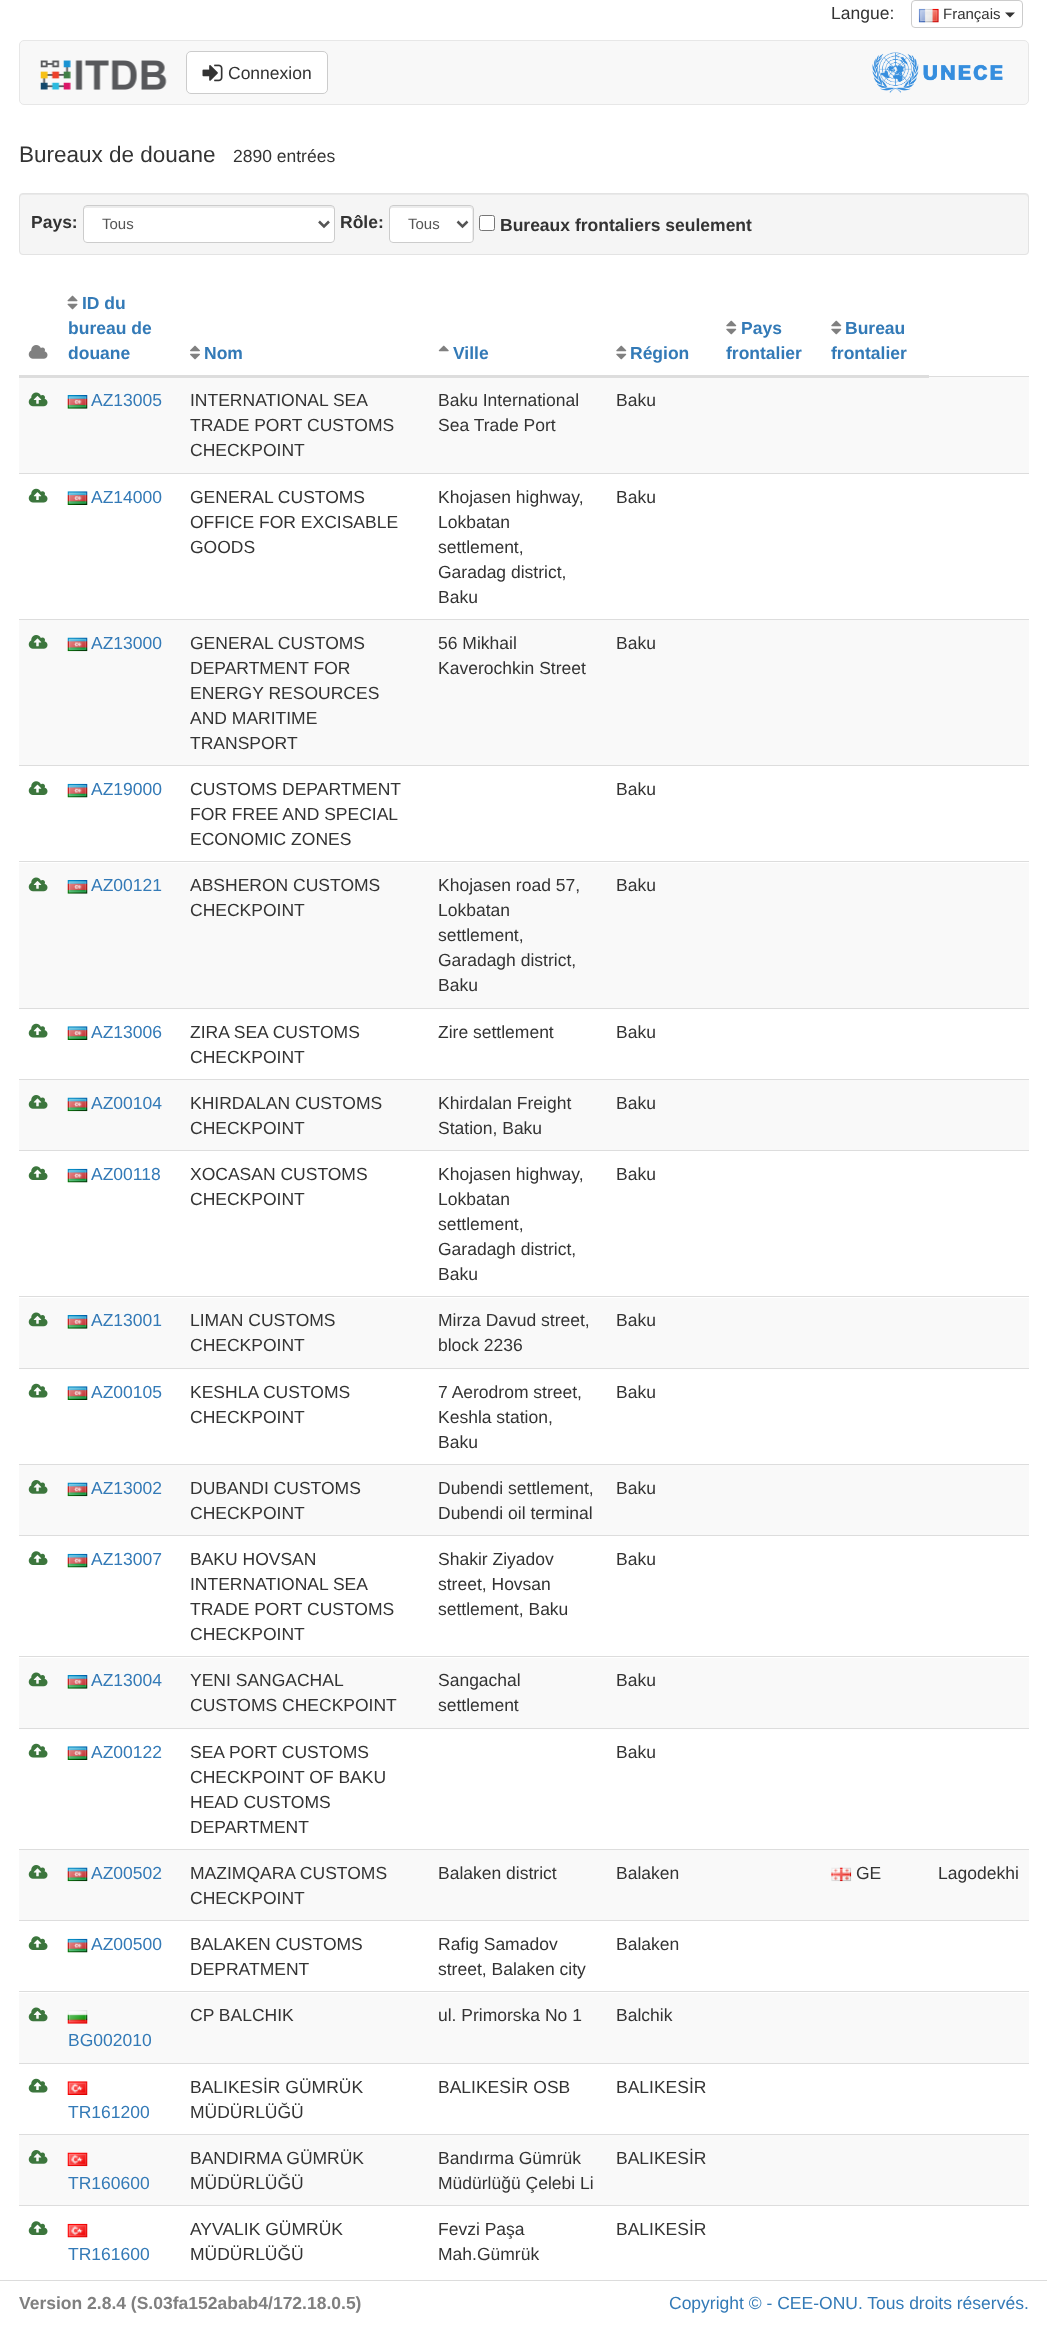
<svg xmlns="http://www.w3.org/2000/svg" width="1047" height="2327">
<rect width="100%" height="100%" fill="#fff"/>
<text x="831" y="19" style="font-family:Liberation Sans;font-size:17.5px;fill:#333">Langue:</text>
<rect x="911.5" y="0.5" width="111" height="27" rx="3.5" fill="none" stroke="#ccc"/>
<image x="918" y="8" width="21" height="15" href="media/1.png"/>
<text x="943" y="19" style="font-family:Liberation Sans;font-size:15px;fill:#333">Français</text>
<path d="M1005 12.5h10l-5 5z" fill="#333"/>
<rect x="19.5" y="40.5" width="1009" height="64" rx="4.5" fill="#f8f8f8" stroke="#e7e7e7"/>
<image x="40" y="60" width="127" height="30" href="media/2.png"/>
<rect x="186.5" y="51.5" width="141" height="42" rx="4.5" fill="#fff" stroke="#ccc"/>
<image x="202" y="64" width="21" height="18" href="media/3.png"/>
<text x="228" y="79" style="font-family:Liberation Sans;font-size:17.5px;fill:#333">Connexion</text>
<image x="872" y="52" width="131" height="41" href="media/4.png"/>
<text x="19" y="162" style="font-family:Liberation Sans;font-size:22.5px;fill:#333">Bureaux de douane</text>
<text x="233" y="162" style="font-family:Liberation Sans;font-size:17.5px;fill:#333">2890 entrées</text>
<rect x="19" y="193" width="1010" height="62" rx="4" fill="#f5f5f5"/>
<path d="M22 195h1003c1 0 3 1 3 3c0-2 0-4-2-4h-1004c-2 0-2 2-2 4c0-2 1-3 2-3z" fill="#e9e9e9"/>
<rect x="19.5" y="193.5" width="1009" height="61" rx="3.5" fill="none" stroke="#e3e3e3"/>
<text x="31" y="228" style="font-family:Liberation Sans;font-size:17.5px;font-weight:bold;fill:#333">Pays:</text>
<rect x="83" y="205" width="252" height="38" rx="4" fill="#fff"/>
<path d="M86 208h245c2 0 3 1 3 2v-2c0-1-1-2-2-2h-246c-1 0-2 1-2 2v2c0-1 1-2 2-2z" fill="#ececec"/>
<rect x="83.5" y="205.5" width="251" height="37" rx="3.5" fill="none" stroke="#ccc"/>
<path d="M319 221.5l5 5l5-5" fill="none" stroke="#555" stroke-width="2.5"/>
<text x="102" y="229" style="font-family:Liberation Sans;font-size:15px;fill:#555">Tous</text>
<text x="340" y="228" style="font-family:Liberation Sans;font-size:17.5px;font-weight:bold;fill:#333">Rôle:</text>
<rect x="389" y="205" width="85" height="38" rx="4" fill="#fff"/>
<path d="M392 208h78c3 0 2 6 2 7v26c1-1 1-2 1-3v-30c0-1-1-2-3-2h-78c-1 0-2 1-2 2v2c0-1 1-2 2-2z" fill="#ececec"/>
<rect x="389.5" y="205.5" width="84" height="37" rx="3.5" fill="none" stroke="#ccc"/>
<path d="M457.5 221.5l5 5l5-5" fill="none" stroke="#555" stroke-width="2.5"/>
<text x="408" y="229" style="font-family:Liberation Sans;font-size:15px;fill:#555">Tous</text>
<rect x="479.5" y="215.5" width="15" height="15" rx="2" fill="#fff" stroke="#767676"/>
<text x="500" y="231" style="font-family:Liberation Sans;font-size:17.5px;font-weight:bold;fill:#333">Bureaux frontaliers seulement</text>
<image x="28" y="345" width="20" height="14" href="media/5.png"/>
<image x="67" y="295" width="11" height="15" href="media/6.png"/>
<text x="82" y="309" style="font-family:Liberation Sans;font-size:17.5px;font-weight:bold;fill:#337ab7">ID du</text>
<text x="68" y="334" style="font-family:Liberation Sans;font-size:17.5px;font-weight:bold;fill:#337ab7">bureau de</text>
<text x="68" y="359" style="font-family:Liberation Sans;font-size:17.5px;font-weight:bold;fill:#337ab7">douane</text>
<image x="190" y="345" width="10" height="15" href="media/7.png"/>
<text x="204" y="359" style="font-family:Liberation Sans;font-size:17.5px;font-weight:bold;fill:#337ab7">Nom</text>
<image x="438" y="345" width="11" height="7" href="media/8.png"/>
<text x="453" y="359" style="font-family:Liberation Sans;font-size:17.5px;font-weight:bold;fill:#337ab7">Ville</text>
<image x="616" y="345" width="11" height="15" href="media/9.png"/>
<text x="630" y="359" style="font-family:Liberation Sans;font-size:17.5px;font-weight:bold;fill:#337ab7">Région</text>
<image x="726" y="320" width="11" height="15" href="media/9.png"/>
<text x="741" y="334" style="font-family:Liberation Sans;font-size:17.5px;font-weight:bold;fill:#337ab7">Pays</text>
<text x="726" y="359" style="font-family:Liberation Sans;font-size:17.5px;font-weight:bold;fill:#337ab7">frontalier</text>
<rect x="19" y="377" width="1010" height="96" fill="#f9f9f9"/>
<rect x="928" y="376" width="101" height="1" fill="#ddd"/>
<rect x="19" y="375" width="910" height="3" fill="#ddd"/>
<image x="831" y="320" width="11" height="15" href="media/9.png"/>
<text x="845" y="334" style="font-family:Liberation Sans;font-size:17.5px;font-weight:bold;fill:#337ab7">Bureau</text>
<text x="831" y="359" style="font-family:Liberation Sans;font-size:17.5px;font-weight:bold;fill:#337ab7">frontalier</text>
<image x="28" y="392" width="20" height="15" href="media/10.png"/>
<image x="67" y="395" width="21" height="14" href="media/11.png"/>
<text x="91" y="406" style="font-family:Liberation Sans;font-size:17.5px;fill:#337ab7">AZ13005</text>
<text x="190" y="406" style="font-family:Liberation Sans;font-size:17.5px;fill:#333">INTERNATIONAL SEA</text>
<text x="190" y="431" style="font-family:Liberation Sans;font-size:17.5px;fill:#333">TRADE PORT CUSTOMS</text>
<text x="190" y="456" style="font-family:Liberation Sans;font-size:17.5px;fill:#333">CHECKPOINT</text>
<text x="438" y="406" style="font-family:Liberation Sans;font-size:17.5px;fill:#333">Baku International</text>
<text x="438" y="431" style="font-family:Liberation Sans;font-size:17.5px;fill:#333">Sea Trade Port</text>
<text x="616" y="406" style="font-family:Liberation Sans;font-size:17.5px;fill:#333">Baku</text>
<rect x="19" y="473" width="1010" height="1" fill="#ddd"/>
<image x="28" y="488" width="20" height="15" href="media/12.png"/>
<image x="67" y="491" width="21" height="14" href="media/13.png"/>
<text x="91" y="503" style="font-family:Liberation Sans;font-size:17.5px;fill:#337ab7">AZ14000</text>
<text x="190" y="503" style="font-family:Liberation Sans;font-size:17.5px;fill:#333">GENERAL CUSTOMS</text>
<text x="190" y="528" style="font-family:Liberation Sans;font-size:17.5px;fill:#333">OFFICE FOR EXCISABLE</text>
<text x="190" y="553" style="font-family:Liberation Sans;font-size:17.5px;fill:#333">GOODS</text>
<text x="438" y="503" style="font-family:Liberation Sans;font-size:17.5px;fill:#333">Khojasen highway,</text>
<text x="438" y="528" style="font-family:Liberation Sans;font-size:17.5px;fill:#333">Lokbatan</text>
<text x="438" y="553" style="font-family:Liberation Sans;font-size:17.5px;fill:#333">settlement,</text>
<text x="438" y="578" style="font-family:Liberation Sans;font-size:17.5px;fill:#333">Garadag district,</text>
<text x="438" y="603" style="font-family:Liberation Sans;font-size:17.5px;fill:#333">Baku</text>
<text x="616" y="503" style="font-family:Liberation Sans;font-size:17.5px;fill:#333">Baku</text>
<rect x="19" y="620" width="1010" height="145" fill="#f9f9f9"/>
<rect x="19" y="619" width="1010" height="1" fill="#ddd"/>
<image x="28" y="635" width="20" height="14" href="media/14.png"/>
<image x="67" y="637" width="21" height="15" href="media/15.png"/>
<text x="91" y="649" style="font-family:Liberation Sans;font-size:17.5px;fill:#337ab7">AZ13000</text>
<text x="190" y="649" style="font-family:Liberation Sans;font-size:17.5px;fill:#333">GENERAL CUSTOMS</text>
<text x="190" y="674" style="font-family:Liberation Sans;font-size:17.5px;fill:#333">DEPARTMENT FOR</text>
<text x="190" y="699" style="font-family:Liberation Sans;font-size:17.5px;fill:#333">ENERGY RESOURCES</text>
<text x="190" y="724" style="font-family:Liberation Sans;font-size:17.5px;fill:#333">AND MARITIME</text>
<text x="190" y="749" style="font-family:Liberation Sans;font-size:17.5px;fill:#333">TRANSPORT</text>
<text x="438" y="649" style="font-family:Liberation Sans;font-size:17.5px;fill:#333">56 Mikhail</text>
<text x="438" y="674" style="font-family:Liberation Sans;font-size:17.5px;fill:#333">Kaverochkin Street</text>
<text x="616" y="649" style="font-family:Liberation Sans;font-size:17.5px;fill:#333">Baku</text>
<rect x="19" y="765" width="1010" height="1" fill="#ddd"/>
<image x="28" y="781" width="20" height="14" href="media/16.png"/>
<image x="67" y="783" width="21" height="15" href="media/17.png"/>
<text x="91" y="795" style="font-family:Liberation Sans;font-size:17.5px;fill:#337ab7">AZ19000</text>
<text x="190" y="795" style="font-family:Liberation Sans;font-size:17.5px;fill:#333">CUSTOMS DEPARTMENT</text>
<text x="190" y="820" style="font-family:Liberation Sans;font-size:17.5px;fill:#333">FOR FREE AND SPECIAL</text>
<text x="190" y="845" style="font-family:Liberation Sans;font-size:17.5px;fill:#333">ECONOMIC ZONES</text>
<text x="616" y="795" style="font-family:Liberation Sans;font-size:17.5px;fill:#333">Baku</text>
<rect x="19" y="863" width="1010" height="145" fill="#f9f9f9"/>
<rect x="19" y="861" width="1010" height="1" fill="#ddd"/>
<image x="28" y="877" width="20" height="15" href="media/10.png"/>
<image x="67" y="880" width="21" height="14" href="media/11.png"/>
<text x="91" y="891" style="font-family:Liberation Sans;font-size:17.5px;fill:#337ab7">AZ00121</text>
<text x="190" y="891" style="font-family:Liberation Sans;font-size:17.5px;fill:#333">ABSHERON CUSTOMS</text>
<text x="190" y="916" style="font-family:Liberation Sans;font-size:17.5px;fill:#333">CHECKPOINT</text>
<text x="438" y="891" style="font-family:Liberation Sans;font-size:17.5px;fill:#333">Khojasen road 57,</text>
<text x="438" y="916" style="font-family:Liberation Sans;font-size:17.5px;fill:#333">Lokbatan</text>
<text x="438" y="941" style="font-family:Liberation Sans;font-size:17.5px;fill:#333">settlement,</text>
<text x="438" y="966" style="font-family:Liberation Sans;font-size:17.5px;fill:#333">Garadagh district,</text>
<text x="438" y="991" style="font-family:Liberation Sans;font-size:17.5px;fill:#333">Baku</text>
<text x="616" y="891" style="font-family:Liberation Sans;font-size:17.5px;fill:#333">Baku</text>
<rect x="19" y="1008" width="1010" height="1" fill="#ddd"/>
<image x="28" y="1023" width="20" height="15" href="media/12.png"/>
<image x="67" y="1026" width="21" height="14" href="media/13.png"/>
<text x="91" y="1038" style="font-family:Liberation Sans;font-size:17.5px;fill:#337ab7">AZ13006</text>
<text x="190" y="1038" style="font-family:Liberation Sans;font-size:17.5px;fill:#333">ZIRA SEA CUSTOMS</text>
<text x="190" y="1063" style="font-family:Liberation Sans;font-size:17.5px;fill:#333">CHECKPOINT</text>
<text x="438" y="1038" style="font-family:Liberation Sans;font-size:17.5px;fill:#333">Zire settlement</text>
<text x="616" y="1038" style="font-family:Liberation Sans;font-size:17.5px;fill:#333">Baku</text>
<rect x="19" y="1080" width="1010" height="70" fill="#f9f9f9"/>
<rect x="19" y="1079" width="1010" height="1" fill="#ddd"/>
<image x="28" y="1095" width="20" height="14" href="media/14.png"/>
<image x="67" y="1097" width="21" height="15" href="media/15.png"/>
<text x="91" y="1109" style="font-family:Liberation Sans;font-size:17.5px;fill:#337ab7">AZ00104</text>
<text x="190" y="1109" style="font-family:Liberation Sans;font-size:17.5px;fill:#333">KHIRDALAN CUSTOMS</text>
<text x="190" y="1134" style="font-family:Liberation Sans;font-size:17.5px;fill:#333">CHECKPOINT</text>
<text x="438" y="1109" style="font-family:Liberation Sans;font-size:17.5px;fill:#333">Khirdalan Freight</text>
<text x="438" y="1134" style="font-family:Liberation Sans;font-size:17.5px;fill:#333">Station, Baku</text>
<text x="616" y="1109" style="font-family:Liberation Sans;font-size:17.5px;fill:#333">Baku</text>
<rect x="19" y="1150" width="1010" height="1" fill="#ddd"/>
<image x="28" y="1166" width="20" height="14" href="media/16.png"/>
<image x="67" y="1168" width="21" height="15" href="media/18.png"/>
<text x="91" y="1180" style="font-family:Liberation Sans;font-size:17.5px;fill:#337ab7">AZ00118</text>
<text x="190" y="1180" style="font-family:Liberation Sans;font-size:17.5px;fill:#333">XOCASAN CUSTOMS</text>
<text x="190" y="1205" style="font-family:Liberation Sans;font-size:17.5px;fill:#333">CHECKPOINT</text>
<text x="438" y="1180" style="font-family:Liberation Sans;font-size:17.5px;fill:#333">Khojasen highway,</text>
<text x="438" y="1205" style="font-family:Liberation Sans;font-size:17.5px;fill:#333">Lokbatan</text>
<text x="438" y="1230" style="font-family:Liberation Sans;font-size:17.5px;fill:#333">settlement,</text>
<text x="438" y="1255" style="font-family:Liberation Sans;font-size:17.5px;fill:#333">Garadagh district,</text>
<text x="438" y="1280" style="font-family:Liberation Sans;font-size:17.5px;fill:#333">Baku</text>
<text x="616" y="1180" style="font-family:Liberation Sans;font-size:17.5px;fill:#333">Baku</text>
<rect x="19" y="1298" width="1010" height="70" fill="#f9f9f9"/>
<rect x="19" y="1296" width="1010" height="1" fill="#ddd"/>
<image x="28" y="1312" width="20" height="15" href="media/10.png"/>
<image x="67" y="1315" width="21" height="14" href="media/11.png"/>
<text x="91" y="1326" style="font-family:Liberation Sans;font-size:17.5px;fill:#337ab7">AZ13001</text>
<text x="190" y="1326" style="font-family:Liberation Sans;font-size:17.5px;fill:#333">LIMAN CUSTOMS</text>
<text x="190" y="1351" style="font-family:Liberation Sans;font-size:17.5px;fill:#333">CHECKPOINT</text>
<text x="438" y="1326" style="font-family:Liberation Sans;font-size:17.5px;fill:#333">Mirza Davud street,</text>
<text x="438" y="1351" style="font-family:Liberation Sans;font-size:17.5px;fill:#333">block 2236</text>
<text x="616" y="1326" style="font-family:Liberation Sans;font-size:17.5px;fill:#333">Baku</text>
<rect x="19" y="1368" width="1010" height="1" fill="#ddd"/>
<image x="28" y="1383" width="20" height="15" href="media/12.png"/>
<image x="67" y="1386" width="21" height="14" href="media/13.png"/>
<text x="91" y="1398" style="font-family:Liberation Sans;font-size:17.5px;fill:#337ab7">AZ00105</text>
<text x="190" y="1398" style="font-family:Liberation Sans;font-size:17.5px;fill:#333">KESHLA CUSTOMS</text>
<text x="190" y="1423" style="font-family:Liberation Sans;font-size:17.5px;fill:#333">CHECKPOINT</text>
<text x="438" y="1398" style="font-family:Liberation Sans;font-size:17.5px;fill:#333">7 Aerodrom street,</text>
<text x="438" y="1423" style="font-family:Liberation Sans;font-size:17.5px;fill:#333">Keshla station,</text>
<text x="438" y="1448" style="font-family:Liberation Sans;font-size:17.5px;fill:#333">Baku</text>
<text x="616" y="1398" style="font-family:Liberation Sans;font-size:17.5px;fill:#333">Baku</text>
<rect x="19" y="1465" width="1010" height="70" fill="#f9f9f9"/>
<rect x="19" y="1464" width="1010" height="1" fill="#ddd"/>
<image x="28" y="1480" width="20" height="14" href="media/14.png"/>
<image x="67" y="1482" width="21" height="15" href="media/15.png"/>
<text x="91" y="1494" style="font-family:Liberation Sans;font-size:17.5px;fill:#337ab7">AZ13002</text>
<text x="190" y="1494" style="font-family:Liberation Sans;font-size:17.5px;fill:#333">DUBANDI CUSTOMS</text>
<text x="190" y="1519" style="font-family:Liberation Sans;font-size:17.5px;fill:#333">CHECKPOINT</text>
<text x="438" y="1494" style="font-family:Liberation Sans;font-size:17.5px;fill:#333">Dubendi settlement,</text>
<text x="438" y="1519" style="font-family:Liberation Sans;font-size:17.5px;fill:#333">Dubendi oil terminal</text>
<text x="616" y="1494" style="font-family:Liberation Sans;font-size:17.5px;fill:#333">Baku</text>
<rect x="19" y="1535" width="1010" height="1" fill="#ddd"/>
<image x="28" y="1551" width="20" height="14" href="media/16.png"/>
<image x="67" y="1553" width="21" height="15" href="media/17.png"/>
<text x="91" y="1565" style="font-family:Liberation Sans;font-size:17.5px;fill:#337ab7">AZ13007</text>
<text x="190" y="1565" style="font-family:Liberation Sans;font-size:17.5px;fill:#333">BAKU HOVSAN</text>
<text x="190" y="1590" style="font-family:Liberation Sans;font-size:17.5px;fill:#333">INTERNATIONAL SEA</text>
<text x="190" y="1615" style="font-family:Liberation Sans;font-size:17.5px;fill:#333">TRADE PORT CUSTOMS</text>
<text x="190" y="1640" style="font-family:Liberation Sans;font-size:17.5px;fill:#333">CHECKPOINT</text>
<text x="438" y="1565" style="font-family:Liberation Sans;font-size:17.5px;fill:#333">Shakir Ziyadov</text>
<text x="438" y="1590" style="font-family:Liberation Sans;font-size:17.5px;fill:#333">street, Hovsan</text>
<text x="438" y="1615" style="font-family:Liberation Sans;font-size:17.5px;fill:#333">settlement, Baku</text>
<text x="616" y="1565" style="font-family:Liberation Sans;font-size:17.5px;fill:#333">Baku</text>
<rect x="19" y="1658" width="1010" height="70" fill="#f9f9f9"/>
<rect x="19" y="1656" width="1010" height="1" fill="#ddd"/>
<image x="28" y="1672" width="20" height="15" href="media/10.png"/>
<image x="67" y="1675" width="21" height="14" href="media/11.png"/>
<text x="91" y="1686" style="font-family:Liberation Sans;font-size:17.5px;fill:#337ab7">AZ13004</text>
<text x="190" y="1686" style="font-family:Liberation Sans;font-size:17.5px;fill:#333">YENI SANGACHAL</text>
<text x="190" y="1711" style="font-family:Liberation Sans;font-size:17.5px;fill:#333">CUSTOMS CHECKPOINT</text>
<text x="438" y="1686" style="font-family:Liberation Sans;font-size:17.5px;fill:#333">Sangachal</text>
<text x="438" y="1711" style="font-family:Liberation Sans;font-size:17.5px;fill:#333">settlement</text>
<text x="616" y="1686" style="font-family:Liberation Sans;font-size:17.5px;fill:#333">Baku</text>
<rect x="19" y="1728" width="1010" height="1" fill="#ddd"/>
<image x="28" y="1743" width="20" height="15" href="media/12.png"/>
<image x="67" y="1746" width="21" height="14" href="media/13.png"/>
<text x="91" y="1758" style="font-family:Liberation Sans;font-size:17.5px;fill:#337ab7">AZ00122</text>
<text x="190" y="1758" style="font-family:Liberation Sans;font-size:17.5px;fill:#333">SEA PORT CUSTOMS</text>
<text x="190" y="1783" style="font-family:Liberation Sans;font-size:17.5px;fill:#333">CHECKPOINT OF BAKU</text>
<text x="190" y="1808" style="font-family:Liberation Sans;font-size:17.5px;fill:#333">HEAD CUSTOMS</text>
<text x="190" y="1833" style="font-family:Liberation Sans;font-size:17.5px;fill:#333">DEPARTMENT</text>
<text x="616" y="1758" style="font-family:Liberation Sans;font-size:17.5px;fill:#333">Baku</text>
<rect x="19" y="1850" width="1010" height="70" fill="#f9f9f9"/>
<image x="28" y="1865" width="20" height="14" href="media/14.png"/>
<image x="67" y="1867" width="21" height="15" href="media/15.png"/>
<text x="91" y="1879" style="font-family:Liberation Sans;font-size:17.5px;fill:#337ab7">AZ00502</text>
<text x="190" y="1879" style="font-family:Liberation Sans;font-size:17.5px;fill:#333">MAZIMQARA CUSTOMS</text>
<text x="190" y="1904" style="font-family:Liberation Sans;font-size:17.5px;fill:#333">CHECKPOINT</text>
<text x="438" y="1879" style="font-family:Liberation Sans;font-size:17.5px;fill:#333">Balaken district</text>
<text x="616" y="1879" style="font-family:Liberation Sans;font-size:17.5px;fill:#333">Balaken</text>
<image x="831" y="1867" width="21" height="15" href="media/19.png"/>
<text x="856" y="1879" style="font-family:Liberation Sans;font-size:17.5px;fill:#333">GE</text>
<rect x="19" y="1849" width="1010" height="1" fill="#ddd"/>
<text x="938" y="1879" style="font-family:Liberation Sans;font-size:17.5px;fill:#333">Lagodekhi</text>
<rect x="19" y="1920" width="1010" height="1" fill="#ddd"/>
<image x="28" y="1936" width="20" height="14" href="media/16.png"/>
<image x="67" y="1938" width="21" height="15" href="media/17.png"/>
<text x="91" y="1950" style="font-family:Liberation Sans;font-size:17.5px;fill:#337ab7">AZ00500</text>
<text x="190" y="1950" style="font-family:Liberation Sans;font-size:17.5px;fill:#333">BALAKEN CUSTOMS</text>
<text x="190" y="1975" style="font-family:Liberation Sans;font-size:17.5px;fill:#333">DEPRATMENT</text>
<text x="438" y="1950" style="font-family:Liberation Sans;font-size:17.5px;fill:#333">Rafig Samadov</text>
<text x="438" y="1975" style="font-family:Liberation Sans;font-size:17.5px;fill:#333">street, Balaken city</text>
<text x="616" y="1950" style="font-family:Liberation Sans;font-size:17.5px;fill:#333">Balaken</text>
<rect x="19" y="1993" width="1010" height="70" fill="#f9f9f9"/>
<rect x="19" y="1991" width="1010" height="1" fill="#ddd"/>
<image x="28" y="2007" width="20" height="15" href="media/10.png"/>
<text x="190" y="2021" style="font-family:Liberation Sans;font-size:17.5px;fill:#333">CP BALCHIK</text>
<text x="438" y="2021" style="font-family:Liberation Sans;font-size:17.5px;fill:#333">ul. Primorska No 1</text>
<text x="616" y="2021" style="font-family:Liberation Sans;font-size:17.5px;fill:#333">Balchik</text>
<image x="67" y="2010" width="21" height="14" href="media/20.png"/>
<text x="68" y="2046" style="font-family:Liberation Sans;font-size:17.5px;fill:#337ab7">BG002010</text>
<rect x="19" y="2063" width="1010" height="1" fill="#ddd"/>
<image x="28" y="2078" width="20" height="15" href="media/12.png"/>
<text x="190" y="2093" style="font-family:Liberation Sans;font-size:17.5px;fill:#333">BALIKESİR GÜMRÜK</text>
<text x="190" y="2118" style="font-family:Liberation Sans;font-size:17.5px;fill:#333">MÜDÜRLÜĞÜ</text>
<text x="438" y="2093" style="font-family:Liberation Sans;font-size:17.5px;fill:#333">BALIKESİR OSB</text>
<text x="616" y="2093" style="font-family:Liberation Sans;font-size:17.5px;fill:#333">BALIKESİR</text>
<image x="67" y="2081" width="21" height="14" href="media/21.png"/>
<text x="68" y="2118" style="font-family:Liberation Sans;font-size:17.5px;fill:#337ab7">TR161200</text>
<rect x="19" y="2135" width="1010" height="70" fill="#f9f9f9"/>
<rect x="19" y="2134" width="1010" height="1" fill="#ddd"/>
<image x="28" y="2150" width="20" height="14" href="media/14.png"/>
<image x="67" y="2152" width="21" height="15" href="media/22.png"/>
<text x="68" y="2189" style="font-family:Liberation Sans;font-size:17.5px;fill:#337ab7">TR160600</text>
<text x="190" y="2164" style="font-family:Liberation Sans;font-size:17.5px;fill:#333">BANDIRMA GÜMRÜK</text>
<text x="190" y="2189" style="font-family:Liberation Sans;font-size:17.5px;fill:#333">MÜDÜRLÜĞÜ</text>
<text x="438" y="2164" style="font-family:Liberation Sans;font-size:17.5px;fill:#333">Bandırma Gümrük</text>
<text x="438" y="2189" style="font-family:Liberation Sans;font-size:17.5px;fill:#333">Müdürlüğü Çelebi Li</text>
<text x="616" y="2164" style="font-family:Liberation Sans;font-size:17.5px;fill:#333">BALIKESİR</text>
<rect x="19" y="2205" width="1010" height="1" fill="#ddd"/>
<image x="28" y="2221" width="20" height="14" href="media/16.png"/>
<image x="67" y="2223" width="21" height="15" href="media/23.png"/>
<text x="68" y="2260" style="font-family:Liberation Sans;font-size:17.5px;fill:#337ab7">TR161600</text>
<text x="190" y="2235" style="font-family:Liberation Sans;font-size:17.5px;fill:#333">AYVALIK GÜMRÜK</text>
<text x="190" y="2260" style="font-family:Liberation Sans;font-size:17.5px;fill:#333">MÜDÜRLÜĞÜ</text>
<text x="438" y="2235" style="font-family:Liberation Sans;font-size:17.5px;fill:#333">Fevzi Paşa</text>
<text x="438" y="2260" style="font-family:Liberation Sans;font-size:17.5px;fill:#333">Mah.Gümrük</text>
<text x="616" y="2235" style="font-family:Liberation Sans;font-size:17.5px;fill:#333">BALIKESİR</text>
<rect y="2280" width="1047" height="1" fill="#dcdcdc"/>
<text x="19" y="2309" style="font-family:Liberation Sans;font-size:17.5px;font-weight:bold;fill:#808080">Version 2.8.4 (S.03fa152abab4/172.18.0.5)</text>
<text x="669" y="2309" style="font-family:Liberation Sans;font-size:17.5px;fill:#337ab7">Copyright © - CEE-ONU. Tous droits réservés.</text>
</svg>
